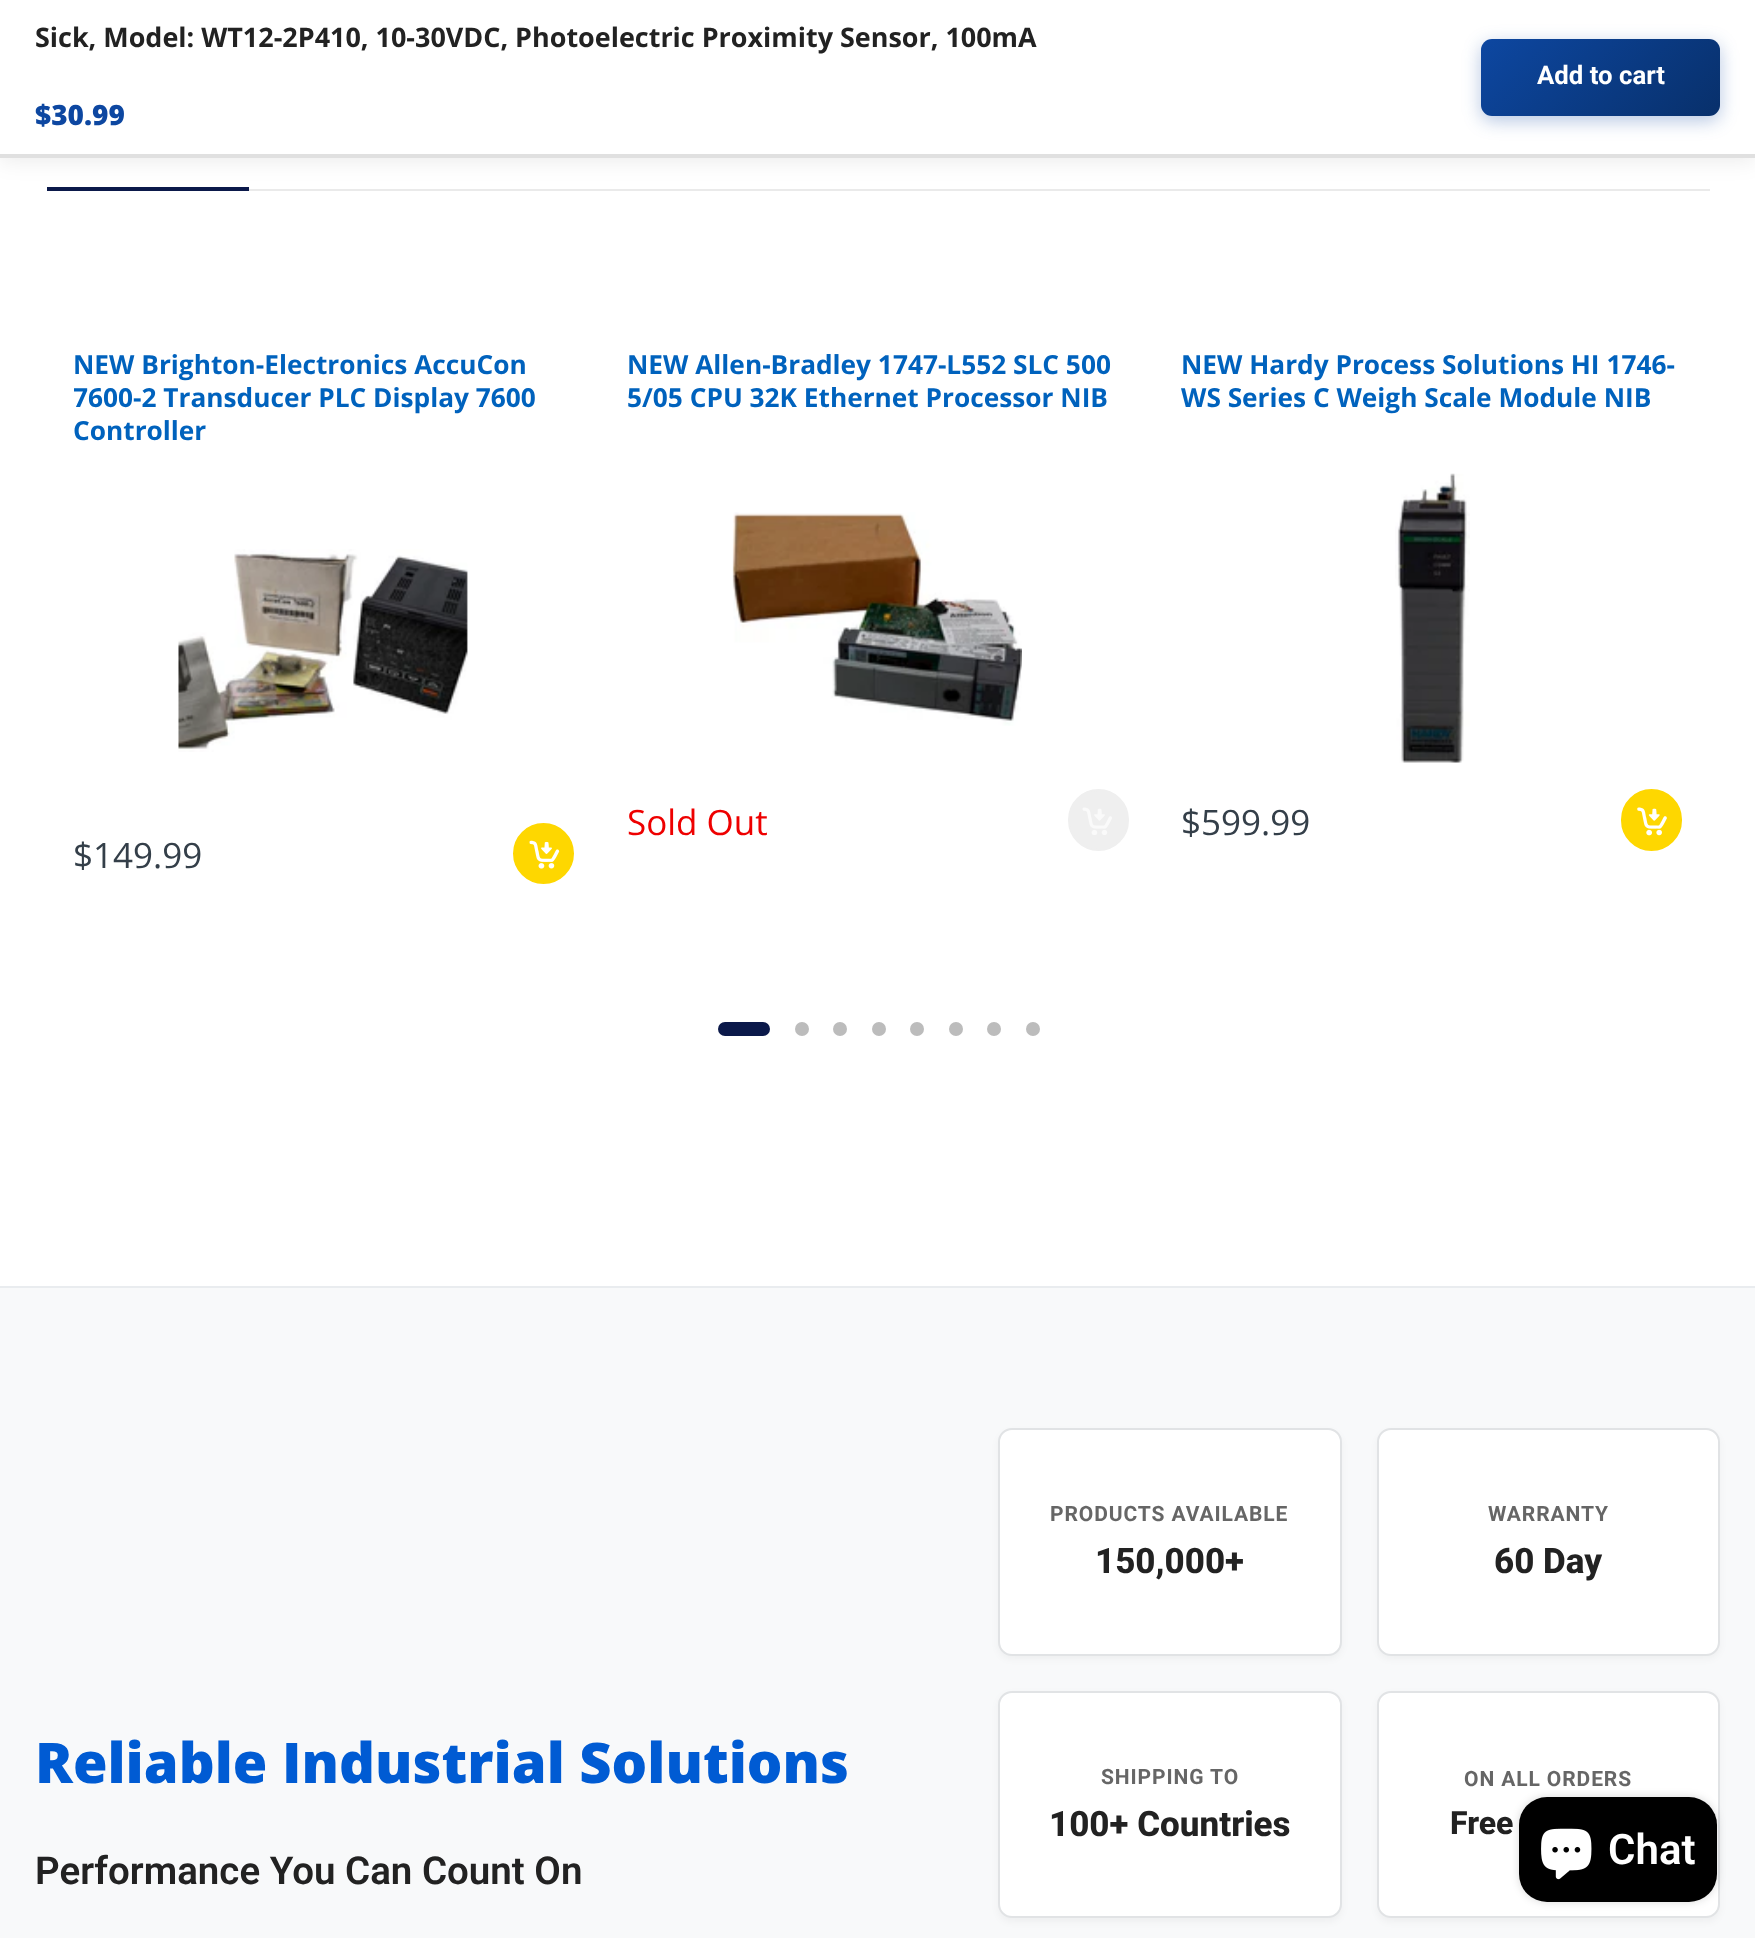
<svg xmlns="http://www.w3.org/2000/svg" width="1755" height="1938">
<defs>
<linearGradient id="g1" gradientUnits="userSpaceOnUse" x1="1521" y1="-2.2" x2="1680" y2="156"><stop offset="0" stop-color="#0d47a1"/><stop offset="1" stop-color="#08306b"/></linearGradient>
<clipPath id="clip1"><rect x="74" y="348" width="500" height="133"/></clipPath>
</defs>
<rect width="100%" height="100%" fill="#fff"/>
<rect x="249" y="189" width="1461" height="2" fill="#eaeaea"/>
<rect x="47" y="187" width="202" height="4" fill="#0b194a"/>
<rect y="4" width="1755" height="157" fill="#00000014" filter="blur(10.5px)"/>
<rect width="1755" height="154" fill="#fff"/>
<rect y="154" width="1755" height="4" fill="#e0e0e0"/>
<text x="35" y="47" style="font-family:Open Sans;font-size:26.95px;font-weight:bold;fill:#222">Sick, Model: WT12-2P410, 10-30VDC, Photoelectric Proximity Sensor, 100mA</text>
<text x="35" y="125" style="font-family:Open Sans;font-size:28px;font-weight:800;fill:#0d47a1">$30.99</text>
<rect x="1481" y="44" width="239" height="77" rx="11" fill="#0d47a14d" filter="blur(9px)"/>
<rect x="1481" y="39" width="239" height="77" rx="11" fill="url(#g1)"/>
<text x="1537" y="84" style="font-family:Roboto;font-size:25.75px;font-weight:bold;fill:#fff">Add to cart</text>
<text x="73" y="374" style="font-family:Open Sans;font-size:26.25px;font-weight:bold;fill:#0062bd">NEW Brighton-Electronics AccuCon</text>
<g clip-path="url(#clip1)">
<text x="73" y="407" style="font-family:Open Sans;font-size:26.25px;font-weight:bold;fill:#0062bd">7600-2 Transducer PLC Display 7600</text>
</g>
<text x="73" y="440" style="font-family:Open Sans;font-size:26.25px;font-weight:bold;fill:#0062bd">Controller</text>
<image x="178" y="549" width="290" height="203" href="media/1.png"/>
<text x="73" y="868" style="font-family:Open Sans;font-size:35px;fill:#343f49">$149.99</text>
<circle cx="543.5" cy="853.5" r="29.5" fill="#fed700" stroke="#fed700" stroke-width="2"/>
<image x="529" y="840" width="31" height="29" href="media/2.png"/>
<text x="627" y="374" style="font-family:Open Sans;font-size:26.25px;font-weight:bold;fill:#0062bd">NEW Allen-Bradley 1747-L552 SLC 500</text>
<text x="627" y="407" style="font-family:Open Sans;font-size:26.25px;font-weight:bold;fill:#0062bd">5/05 CPU 32K Ethernet Processor NIB</text>
<image x="732" y="512" width="290" height="214" href="media/3.png"/>
<text x="627" y="835" style="font-family:Open Sans;font-size:35px;fill:#e00">Sold Out</text>
<rect x="1069" y="790" width="59" height="60" rx="29.5" fill="#efefef" stroke="#efefef" stroke-width="2"/>
<image x="1082" y="807" width="30" height="28" href="media/4.png"/>
<text x="1181" y="374" style="font-family:Open Sans;font-size:26.25px;font-weight:bold;fill:#0062bd">NEW Hardy Process Solutions HI 1746-</text>
<text x="1181" y="407" style="font-family:Open Sans;font-size:26.25px;font-weight:bold;fill:#0062bd">WS Series C Weigh Scale Module NIB</text>
<image x="1395" y="473" width="75" height="290" href="media/5.png"/>
<text x="1181" y="835" style="font-family:Open Sans;font-size:35px;fill:#343f49">$599.99</text>
<rect x="1622" y="790" width="59" height="60" rx="29.5" fill="#fed700" stroke="#fed700" stroke-width="2"/>
<image x="1637" y="807" width="30" height="29" href="media/6.png"/>
<rect x="718" y="1022" width="52" height="14" rx="7" fill="#0b194a"/>
<circle cx="802" cy="1029" r="7" fill="#bcbcbc"/>
<circle cx="840" cy="1029" r="7" fill="#bcbcbc"/>
<circle cx="879" cy="1029" r="7" fill="#bcbcbc"/>
<circle cx="917" cy="1029" r="7" fill="#bcbcbc"/>
<circle cx="956" cy="1029" r="7" fill="#bcbcbc"/>
<circle cx="994" cy="1029" r="7" fill="#bcbcbc"/>
<circle cx="1033" cy="1029" r="7" fill="#bcbcbc"/>
<rect y="1288" width="1755" height="650" fill="#f8f9fa"/>
<rect y="1286" width="1755" height="2" fill="#e9ecef"/>
<text x="35" y="1783" style="font-family:Open Sans;font-size:56px;font-weight:800;fill:#005bd3">Reliable Industrial Solutions</text>
<text x="35" y="1884" style="font-family:Roboto;font-size:38.5px;font-weight:600;fill:#222">Performance You Can Count On</text>
<rect x="998" y="1432" width="344" height="227" rx="14" fill="#0000000a" filter="blur(3.5px)"/>
<rect x="999" y="1429" width="342" height="226" rx="13" fill="#fff" stroke="#e1e3e5" stroke-width="2"/>
<text x="1050" y="1521" style="font-family:Roboto;font-size:21px;font-weight:bold;letter-spacing:0.9px;fill:#666">PRODUCTS AVAILABLE</text>
<text x="1095" y="1573" style="font-family:Roboto;font-size:35px;font-weight:800;fill:#222">150,000+</text>
<rect x="1377" y="1432" width="343" height="227" rx="14" fill="#0000000a" filter="blur(3.5px)"/>
<rect x="1378" y="1429" width="341" height="226" rx="13" fill="#fff" stroke="#e1e3e5" stroke-width="2"/>
<text x="1488" y="1521" style="font-family:Roboto;font-size:21px;font-weight:bold;letter-spacing:0.9px;fill:#666">WARRANTY</text>
<text x="1494" y="1573" style="font-family:Roboto;font-size:35px;font-weight:800;fill:#222">60 Day</text>
<rect x="998" y="1694" width="344" height="228" rx="14" fill="#0000000a" filter="blur(3.5px)"/>
<rect x="999" y="1692" width="342" height="225" rx="13" fill="#fff" stroke="#e1e3e5" stroke-width="2"/>
<text x="1101" y="1784" style="font-family:Roboto;font-size:21px;font-weight:bold;letter-spacing:0.9px;fill:#666">SHIPPING TO</text>
<text x="1049" y="1836" style="font-family:Roboto;font-size:35px;font-weight:800;fill:#222">100+ Countries</text>
<rect x="1377" y="1694" width="343" height="228" rx="14" fill="#0000000a" filter="blur(3.5px)"/>
<rect x="1378" y="1692" width="341" height="225" rx="13" fill="#fff" stroke="#e1e3e5" stroke-width="2"/>
<text x="1464" y="1786" style="font-family:Roboto;font-size:21px;font-weight:bold;letter-spacing:0.9px;fill:#666">ON ALL ORDERS</text>
<text x="1450" y="1834" style="font-family:Roboto;font-size:32px;font-weight:800;fill:#222">Free</text>
<rect x="1519" y="1797" width="198" height="105" rx="28" fill="#00000026" filter="blur(4.5px)"/>
<rect x="1519" y="1797" width="198" height="105" rx="28" fill="#000"/>
<image x="1541" y="1828" width="51" height="52" href="media/7.png"/>
<text x="1608" y="1864" style="font-family:Roboto;font-size:42px;font-weight:600;fill:#fff">Chat</text>
</svg>
